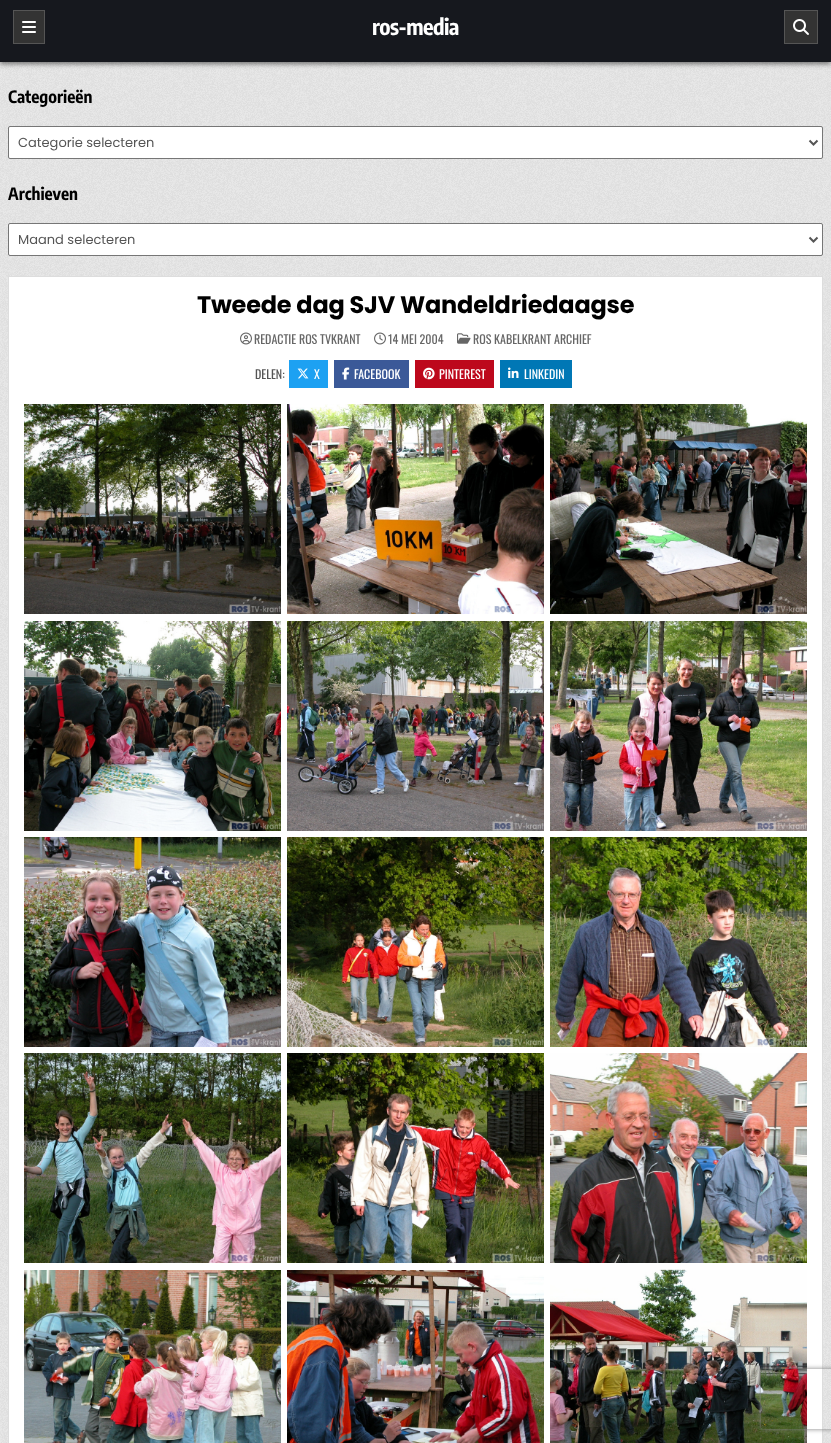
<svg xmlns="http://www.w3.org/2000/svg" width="831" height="1443">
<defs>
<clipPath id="clip1"><path d="M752 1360h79v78h-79zm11 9h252c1 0 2 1 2 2v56c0 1-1 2-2 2h-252c-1 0-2-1-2-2v-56c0-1 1-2 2-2z" clip-rule="evenodd"/></clipPath>
</defs>
<rect width="100%" height="100%" fill="#fff"/>
<image x="0" y="62" width="831" height="1381" href="media/1.png"/>
<rect y="2" width="831" height="62" fill="#00000080" filter="blur(2.5px)"/>
<rect width="831" height="62" fill="#16181e"/>
<rect x="13.5" y="10.5" width="31" height="33" fill="#333" stroke="#555"/>
<image x="22" y="21" width="14" height="12" href="media/2.png"/>
<text x="372" y="35" style="font-family:Encode Sans Condensed;font-size:22px;font-weight:bold;letter-spacing:-0.5px;fill:#fff">ros-media</text>
<rect x="784.5" y="10.5" width="33" height="33" fill="#333" stroke="#555"/>
<image x="793" y="19" width="16" height="16" href="media/3.png"/>
<text x="8" y="103" style="font-family:Encode Sans Condensed;font-size:17px;font-weight:bold;fill:#000">Categorieën</text>
<rect x="8.5" y="126.5" width="814" height="32" rx="1.5" fill="#fff" stroke="#767676"/>
<path d="M809.5 140.5l4 4l4-4" fill="none" stroke="#555" stroke-width="2"/>
<text x="18" y="147" style="font-family:Poppins;font-size:13px;fill:#555">Categorie selecteren</text>
<text x="8" y="200" style="font-family:Encode Sans Condensed;font-size:17px;font-weight:bold;fill:#000">Archieven</text>
<rect x="8.5" y="223.5" width="814" height="32" rx="1.5" fill="#fff" stroke="#767676"/>
<path d="M809.5 237.5l4 4l4-4" fill="none" stroke="#555" stroke-width="2"/>
<text x="18" y="244" style="font-family:Poppins;font-size:13px;fill:#555">Maand selecteren</text>
<rect x="8.5" y="276.5" width="814" height="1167" fill="#fff" stroke="#ddd"/>
<text x="197" y="313" style="font-family:Poppins;font-size:24px;font-weight:bold;letter-spacing:-0.2px;fill:#000">Tweede dag SJV Wandeldriedaagse</text>
<image x="240" y="332" width="12" height="13" href="media/4.png"/>
<text x="254" y="344" style="font-family:Oswald;font-size:12px;fill:#666">REDACTIE ROS TVKRANT</text>
<image x="374" y="332" width="12" height="13" href="media/5.png"/>
<text x="388" y="344" style="font-family:Oswald;font-size:12px;fill:#666">14 MEI 2004</text>
<image x="457" y="333" width="14" height="11" href="media/6.png"/>
<text x="473" y="344" style="font-family:Oswald;font-size:12px;fill:#666">ROS KABELKRANT ARCHIEF</text>
<text x="255" y="379" style="font-family:Oswald;font-size:12px;fill:#555">DELEN:</text>
<rect x="289" y="360" width="39" height="28" fill="#1da1f2"/>
<image x="297" y="368" width="12" height="11" href="media/7.png"/>
<text x="314" y="379" style="font-family:Oswald;font-size:12px;fill:#fff">X</text>
<rect x="334" y="360" width="75" height="28" fill="#3b5998"/>
<image x="342" y="367" width="8" height="13" href="media/8.png"/>
<text x="354" y="379" style="font-family:Oswald;font-size:12px;fill:#fff">FACEBOOK</text>
<rect x="415" y="360" width="79" height="28" fill="#bd081c"/>
<image x="423" y="367" width="12" height="13" href="media/9.png"/>
<text x="439" y="379" style="font-family:Oswald;font-size:12px;fill:#fff">PINTEREST</text>
<rect x="500" y="360" width="72" height="28" fill="#0077b5"/>
<image x="508" y="367" width="11" height="11" href="media/10.png"/>
<text x="524" y="379" style="font-family:Oswald;font-size:12px;fill:#fff">LINKEDIN</text>
<image x="24" y="404" width="257" height="210" href="media/11.png"/>
<image x="287" y="404" width="257" height="210" href="media/12.png"/>
<image x="550" y="404" width="257" height="210" href="media/13.png"/>
<image x="24" y="621" width="257" height="210" href="media/14.png"/>
<image x="287" y="621" width="257" height="210" href="media/15.png"/>
<image x="550" y="621" width="257" height="210" href="media/16.png"/>
<image x="24" y="837" width="257" height="210" href="media/17.png"/>
<image x="287" y="837" width="257" height="210" href="media/18.png"/>
<image x="550" y="837" width="257" height="210" href="media/19.png"/>
<image x="24" y="1053" width="257" height="210" href="media/20.png"/>
<image x="287" y="1053" width="257" height="210" href="media/21.png"/>
<image x="550" y="1053" width="257" height="210" href="media/22.png"/>
<image x="24" y="1270" width="257" height="173" href="media/23.png"/>
<image x="287" y="1270" width="257" height="173" href="media/24.png"/>
<image x="550" y="1269" width="257" height="174" href="media/25.png"/>
<g clip-path="url(#clip1)">
<rect x="761" y="1369" width="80" height="60" rx="2" fill="#808080" filter="blur(2.5px)"/>
</g>
</svg>
